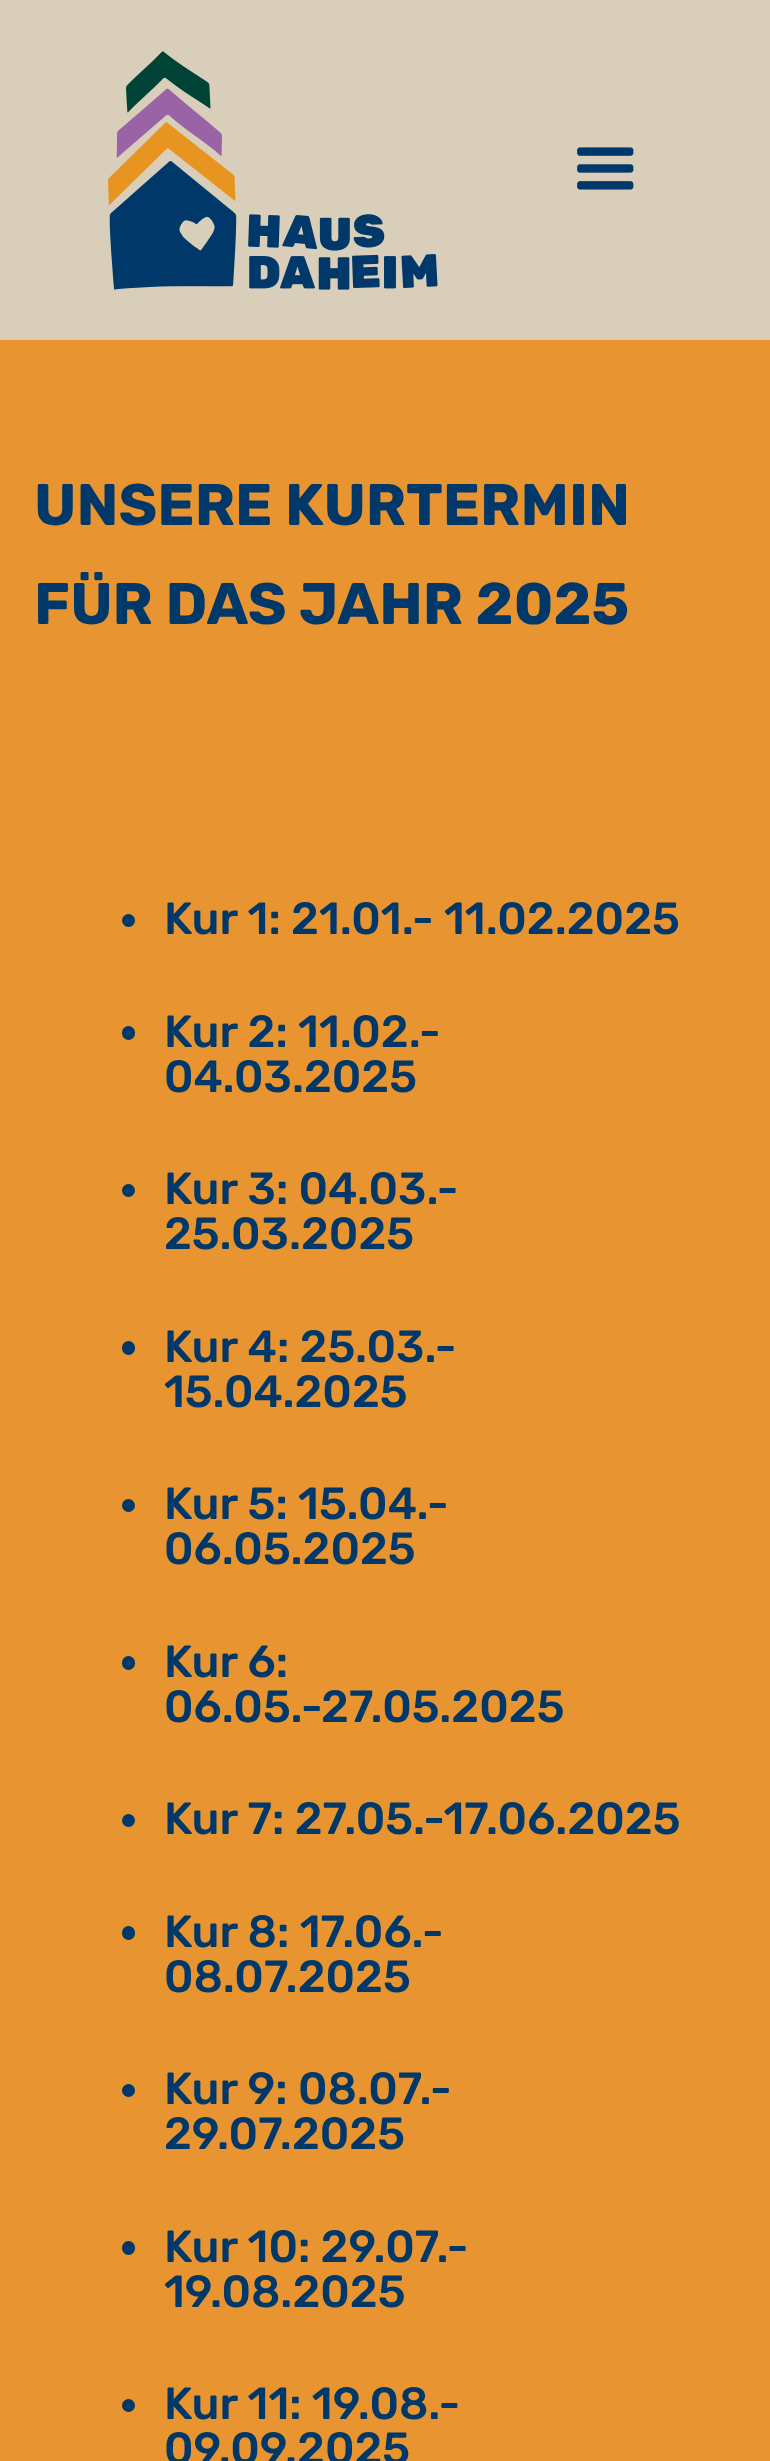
<svg xmlns="http://www.w3.org/2000/svg" width="770" height="2461">
<rect width="100%" height="100%" fill="#e79431"/>
<rect width="770" height="340" fill="#d9ceb9"/>
<image x="107" y="51" width="331" height="239" href="media/1.png"/>
<image x="577" y="147" width="57" height="43" href="media/2.png"/>
<text x="34" y="525" style="font-family:Rubik;font-size:58.5px;font-weight:bold;fill:#003869">UNSERE KURTERMIN</text>
<text x="34" y="624" style="font-family:Rubik;font-size:58.5px;font-weight:bold;fill:#003869">FÜR DAS JAHR 2025</text>
<circle cx="128.5" cy="920.5" r="6.5" fill="#003869"/>
<text x="164" y="934" style="font-family:Rubik;font-size:45px;font-weight:500;fill:#003869">Kur 1: 21.01.- 11.02.2025</text>
<rect x="122" y="1026" width="13" height="14" rx="6.5" fill="#003869"/>
<text x="164" y="1047" style="font-family:Rubik;font-size:45px;font-weight:500;fill:#003869">Kur 2: 11.02.-</text>
<text x="164" y="1092" style="font-family:Rubik;font-size:45px;font-weight:500;fill:#003869">04.03.2025</text>
<circle cx="128.5" cy="1190.5" r="6.5" fill="#003869"/>
<text x="164" y="1204" style="font-family:Rubik;font-size:45px;font-weight:500;fill:#003869">Kur 3: 04.03.-</text>
<text x="164" y="1249" style="font-family:Rubik;font-size:45px;font-weight:500;fill:#003869">25.03.2025</text>
<rect x="122" y="1341" width="13" height="14" rx="6.5" fill="#003869"/>
<text x="164" y="1362" style="font-family:Rubik;font-size:45px;font-weight:500;fill:#003869">Kur 4: 25.03.-</text>
<text x="164" y="1407" style="font-family:Rubik;font-size:45px;font-weight:500;fill:#003869">15.04.2025</text>
<circle cx="128.5" cy="1505.5" r="6.5" fill="#003869"/>
<text x="164" y="1519" style="font-family:Rubik;font-size:45px;font-weight:500;fill:#003869">Kur 5: 15.04.-</text>
<text x="164" y="1564" style="font-family:Rubik;font-size:45px;font-weight:500;fill:#003869">06.05.2025</text>
<rect x="122" y="1656" width="13" height="14" rx="6.5" fill="#003869"/>
<text x="164" y="1677" style="font-family:Rubik;font-size:45px;font-weight:500;fill:#003869">Kur 6:</text>
<text x="164" y="1722" style="font-family:Rubik;font-size:45px;font-weight:500;fill:#003869">06.05.-27.05.2025</text>
<circle cx="128.5" cy="1820.5" r="6.5" fill="#003869"/>
<text x="164" y="1834" style="font-family:Rubik;font-size:45px;font-weight:500;fill:#003869">Kur 7: 27.05.-17.06.2025</text>
<rect x="122" y="1926" width="13" height="14" rx="6.5" fill="#003869"/>
<text x="164" y="1947" style="font-family:Rubik;font-size:45px;font-weight:500;fill:#003869">Kur 8: 17.06.-</text>
<text x="164" y="1992" style="font-family:Rubik;font-size:45px;font-weight:500;fill:#003869">08.07.2025</text>
<circle cx="128.5" cy="2090.5" r="6.5" fill="#003869"/>
<text x="164" y="2104" style="font-family:Rubik;font-size:45px;font-weight:500;fill:#003869">Kur 9: 08.07.-</text>
<text x="164" y="2149" style="font-family:Rubik;font-size:45px;font-weight:500;fill:#003869">29.07.2025</text>
<rect x="122" y="2241" width="13" height="14" rx="6.5" fill="#003869"/>
<text x="164" y="2262" style="font-family:Rubik;font-size:45px;font-weight:500;fill:#003869">Kur 10: 29.07.-</text>
<text x="164" y="2307" style="font-family:Rubik;font-size:45px;font-weight:500;fill:#003869">19.08.2025</text>
<circle cx="128.5" cy="2405.5" r="6.5" fill="#003869"/>
<text x="164" y="2419" style="font-family:Rubik;font-size:45px;font-weight:500;fill:#003869">Kur 11: 19.08.-</text>
<text x="164" y="2464" style="font-family:Rubik;font-size:45px;font-weight:500;fill:#003869">09.09.2025</text>
</svg>
